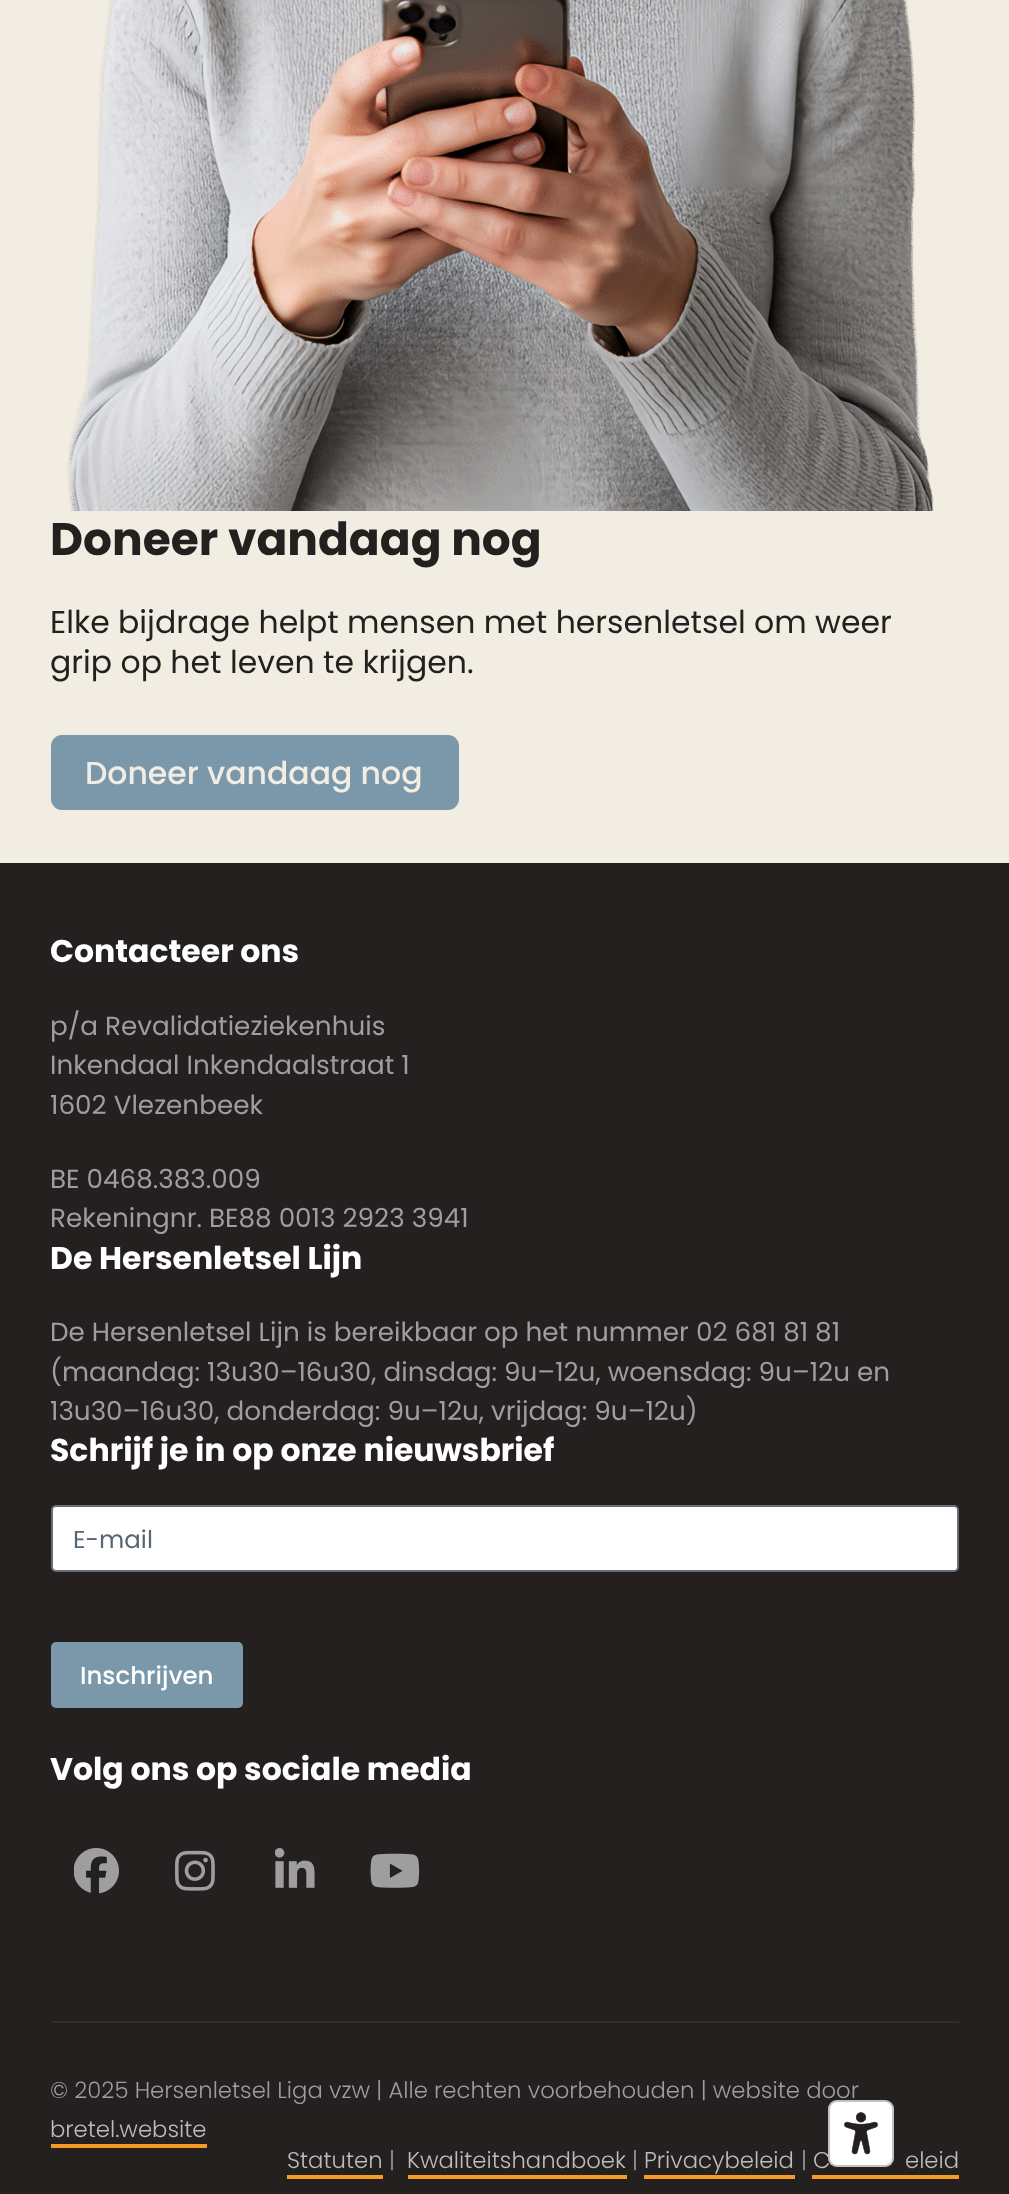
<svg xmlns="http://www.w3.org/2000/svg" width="1009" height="2194">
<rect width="100%" height="100%" fill="#f2ede2"/>
<image x="67" y="0" width="867" height="511" href="media/1.png"/>
<text x="50" y="555" style="font-family:Poppins;font-size:45.5px;font-weight:bold;fill:#252020">Doneer vandaag nog</text>
<text x="50" y="633" style="font-family:Poppins;font-size:31.5px;fill:#252020">Elke bijdrage helpt mensen met hersenletsel om weer</text>
<text x="50" y="673" style="font-family:Poppins;font-size:31.5px;fill:#252020">grip op het leven te krijgen.</text>
<rect x="51" y="735" width="408" height="75" rx="11" fill="#7b98ab"/>
<text x="85" y="784" style="font-family:Poppins;font-size:31.5px;font-weight:500;fill:#f2ede2">Doneer vandaag nog</text>
<rect y="863" width="1009" height="1331" fill="#252020"/>
<text x="50" y="962" style="font-family:Poppins;font-size:31.5px;font-weight:bold;fill:#fff">Contacteer ons</text>
<text x="50" y="1035" style="font-family:Poppins;font-size:26.25px;fill:#9e9e9e">p/a Revalidatieziekenhuis</text>
<text x="50" y="1074" style="font-family:Poppins;font-size:26.25px;fill:#9e9e9e">Inkendaal Inkendaalstraat 1</text>
<text x="50" y="1114" style="font-family:Poppins;font-size:26.25px;fill:#9e9e9e">1602 Vlezenbeek</text>
<text x="50" y="1188" style="font-family:Poppins;font-size:26.25px;fill:#9e9e9e">BE 0468.383.009</text>
<text x="50" y="1227" style="font-family:Poppins;font-size:26.25px;fill:#9e9e9e">Rekeningnr. BE88 0013 2923 3941</text>
<text x="50" y="1269" style="font-family:Poppins;font-size:31.5px;font-weight:bold;fill:#fff">De Hersenletsel Lijn</text>
<text x="50" y="1341" style="font-family:Poppins;font-size:26.25px;fill:#9e9e9e">De Hersenletsel Lijn is bereikbaar op het nummer 02 681 81 81</text>
<text x="50" y="1381" style="font-family:Poppins;font-size:26.25px;fill:#9e9e9e">(maandag: 13u30–16u30, dinsdag: 9u–12u, woensdag: 9u–12u en</text>
<text x="50" y="1420" style="font-family:Poppins;font-size:26.25px;fill:#9e9e9e">13u30–16u30, donderdag: 9u–12u, vrijdag: 9u–12u)</text>
<text x="50" y="1461" style="font-family:Poppins;font-size:31.5px;font-weight:bold;fill:#fff">Schrijf je in op onze nieuwsbrief</text>
<rect x="52" y="1506" width="906" height="65" rx="4" fill="#fff" stroke="#686e77" stroke-width="2"/>
<text x="73" y="1548" style="font-family:Poppins;font-size:24.5px;fill:#586573">E-mail</text>
<rect x="51" y="1642" width="192" height="66" rx="5" fill="#7b98ab"/>
<text x="80" y="1684" style="font-family:Poppins;font-size:24.5px;font-weight:500;fill:#fff">Inschrijven</text>
<text x="50" y="1780" style="font-family:Poppins;font-size:31.5px;font-weight:bold;fill:#fff">Volg ons op sociale media</text>
<image x="74" y="1848" width="45" height="46" href="media/2.png"/>
<image x="175" y="1850" width="40" height="41" href="media/3.png"/>
<image x="275" y="1848" width="40" height="40" href="media/4.png"/>
<image x="370" y="1853" width="50" height="35" href="media/5.png"/>
<rect x="51" y="2021" width="908" height="2" fill="#322d2d"/>
<text x="50" y="2098" style="font-family:Poppins;font-size:22.75px;font-weight:300;fill:#9e9e9e">© 2025 Hersenletsel Liga vzw | Alle rechten voorbehouden | website door</text>
<text x="50" y="2137" style="font-family:Poppins;font-size:22.75px;font-weight:300;fill:#bdbdbd">bretel.website</text>
<rect x="51" y="2144" width="156" height="4" fill="#f59b24"/>
<text x="287" y="2168" style="font-family:Poppins;font-size:22.75px;font-weight:300;fill:#bdbdbd">Statuten</text>
<rect x="287" y="2175" width="96" height="4" fill="#f59b24"/>
<text x="389" y="2168" style="font-family:Poppins;font-size:22.75px;font-weight:300;fill:#9e9e9e">|</text>
<text x="407" y="2168" style="font-family:Poppins;font-size:22.75px;font-weight:300;fill:#bdbdbd">Kwaliteitshandboek</text>
<rect x="408" y="2175" width="219" height="4" fill="#f59b24"/>
<text x="632" y="2168" style="font-family:Poppins;font-size:22.75px;font-weight:300;fill:#9e9e9e">|</text>
<text x="644" y="2168" style="font-family:Poppins;font-size:22.75px;font-weight:300;fill:#bdbdbd">Privacybeleid</text>
<rect x="644" y="2175" width="151" height="4" fill="#f59b24"/>
<text x="801" y="2168" style="font-family:Poppins;font-size:22.75px;font-weight:300;fill:#9e9e9e">|</text>
<text x="813" y="2168" style="font-family:Poppins;font-size:22.75px;font-weight:300;fill:#bdbdbd">C</text>
<rect x="812" y="2175" width="147" height="4" fill="#f59b24"/>
<text x="905" y="2168" style="font-family:Poppins;font-size:22.75px;font-weight:300;fill:#bdbdbd">eleid</text>
<rect x="828" y="2100" width="66" height="67" rx="9" fill="#fff"/>
<image x="844" y="2112" width="34" height="43" href="media/6.png"/>
<rect x="829" y="2101" width="64" height="65" rx="8" fill="none" stroke="#0000003d" stroke-width="2"/>
</svg>
